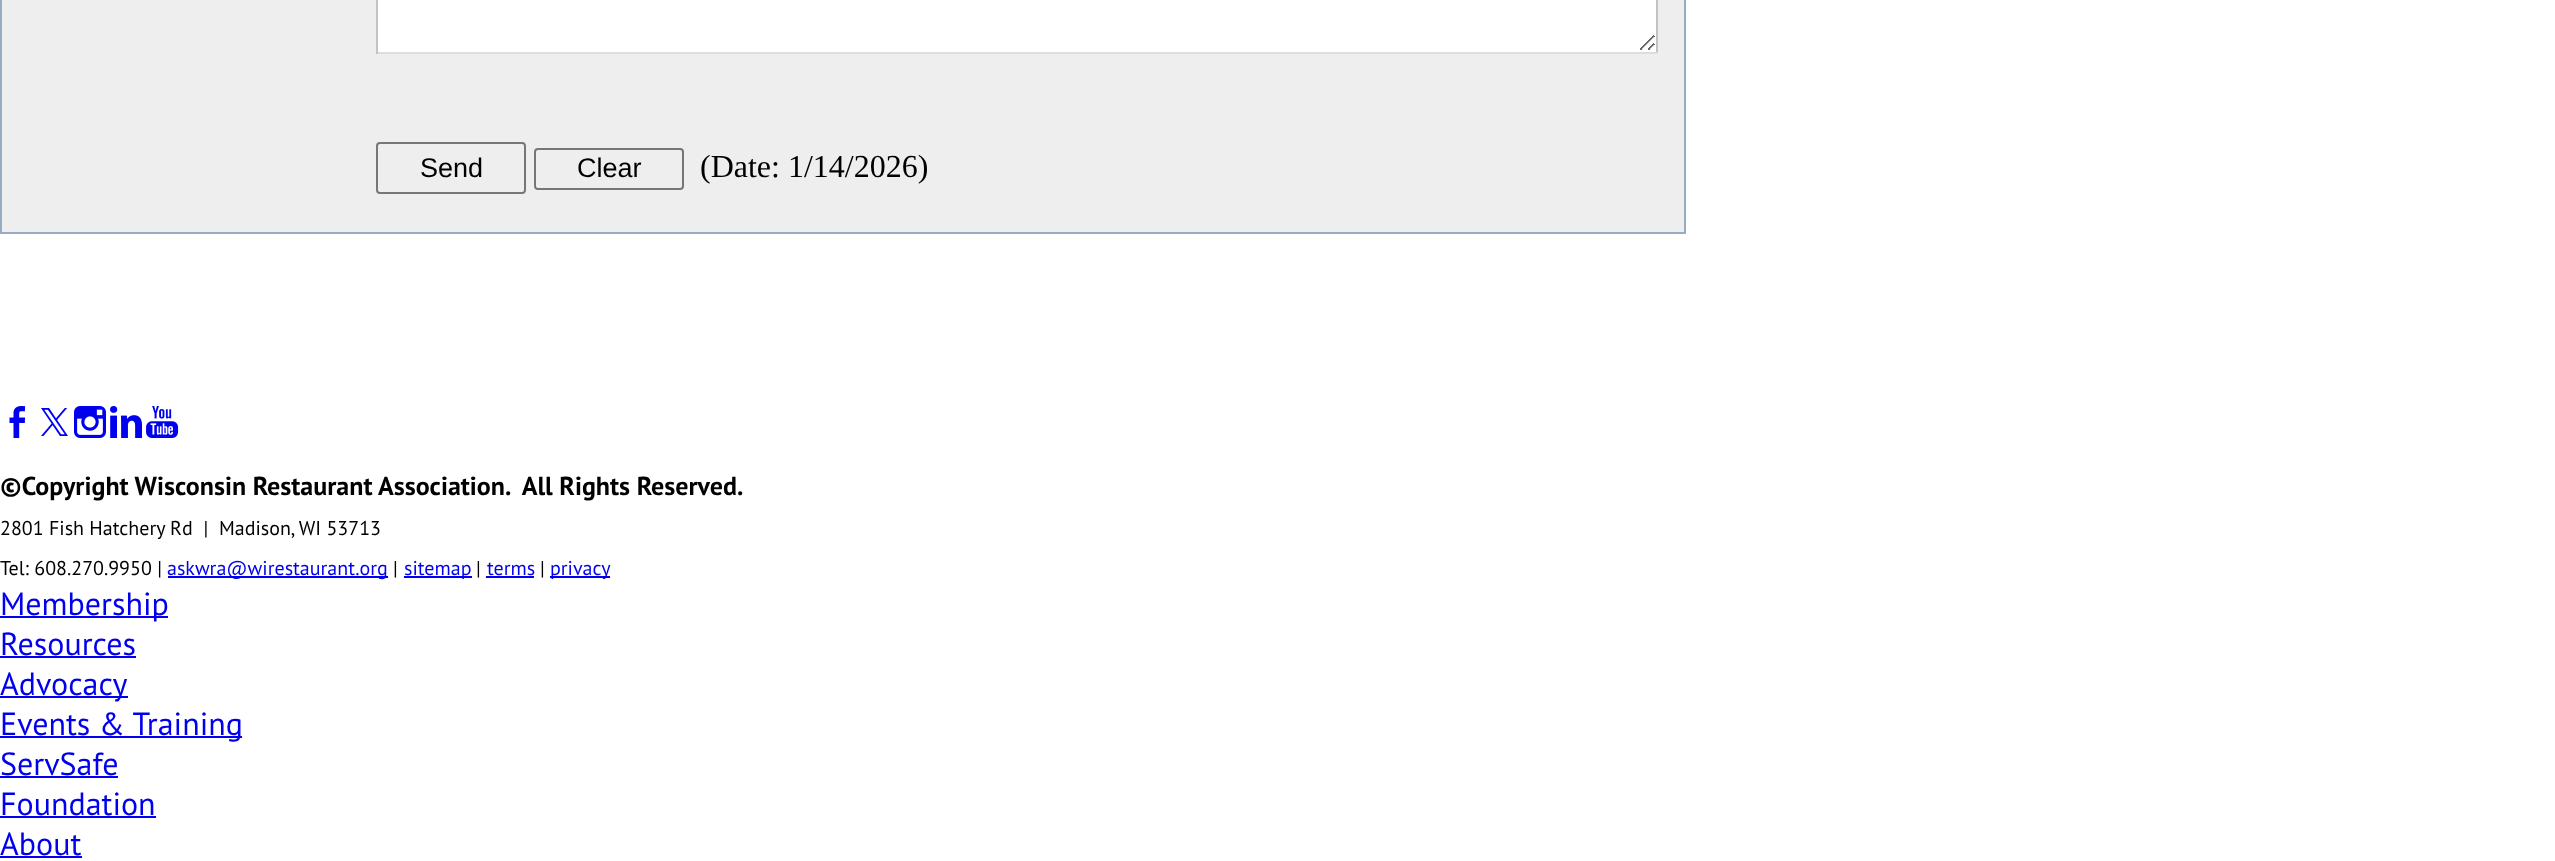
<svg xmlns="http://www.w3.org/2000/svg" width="2555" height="861">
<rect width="100%" height="100%" fill="#fff"/>
<rect x="1" y="-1" width="1684" height="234" fill="#eee" stroke="#96acc3" stroke-width="2"/>
<rect x="378" width="1278" height="52" fill="#fff"/>
<image x="1640" y="35" width="15" height="15" href="media/1.png"/>
<rect x="1656" width="2" height="54" fill="#c3c3c3"/>
<rect x="376" y="52" width="1282" height="2" fill="#ddd"/>
<rect x="376" width="2" height="54" fill="#c3c3c3"/>
<rect x="377" y="143" width="148" height="50" rx="3" fill="none" stroke="#767676" stroke-width="2"/>
<text x="420" y="177" style="font-family:Liberation Sans;font-size:27px;fill:#000">Send</text>
<rect x="535" y="149" width="148" height="40" rx="3" fill="none" stroke="#767676" stroke-width="2"/>
<text x="577" y="177" style="font-family:Liberation Sans;font-size:27px;fill:#000">Clear</text>
<text x="700" y="177" style="font-family:Liberation Serif;font-size:32px;fill:#000">(Date: 1/14/2026)</text>
<image x="9" y="406" width="17" height="32" href="media/2.png"/>
<image x="41" y="408" width="27" height="28" href="media/3.png"/>
<image x="74" y="406" width="32" height="32" href="media/4.png"/>
<image x="110" y="406" width="32" height="32" href="media/5.png"/>
<image x="146" y="406" width="33" height="32" href="media/6.png"/>
<text x="0" y="495" style="font-family:PT Sans;font-size:26px;font-weight:bold;fill:#000" xml:space="preserve">©Copyright Wisconsin Restaurant Association.  All Rights Reserved.</text>
<text x="0" y="535" style="font-family:PT Sans;font-size:20px;fill:#000" xml:space="preserve">2801 Fish Hatchery Rd  |  Madison, WI 53713</text>
<text x="0" y="575" style="font-family:PT Sans;font-size:20px;fill:#000">Tel: 608.270.9950 |</text>
<rect x="168" y="576" width="220" height="2" fill="#00e"/>
<text x="167" y="575" style="font-family:PT Sans;font-size:20px;fill:#00e">askwra@wirestaurant.org</text>
<text x="393" y="575" style="font-family:PT Sans;font-size:20px;fill:#000">|</text>
<rect x="404" y="576" width="68" height="2" fill="#00e"/>
<text x="404" y="575" style="font-family:PT Sans;font-size:20px;fill:#00e">sitemap</text>
<text x="476" y="575" style="font-family:PT Sans;font-size:20px;fill:#000">|</text>
<text x="487" y="575" style="font-family:PT Sans;font-size:20px;fill:#00e">terms</text>
<rect x="486" y="576" width="48" height="2" fill="#00e"/>
<text x="540" y="575" style="font-family:PT Sans;font-size:20px;fill:#000">|</text>
<rect x="550" y="576" width="60" height="2" fill="#00e"/>
<text x="550" y="575" style="font-family:PT Sans;font-size:20px;fill:#00e">privacy</text>
<rect y="616" width="168" height="2" fill="#00e"/>
<text x="0" y="615" style="font-family:PT Sans;font-size:32px;fill:#00e">Membership</text>
<text x="0" y="655" style="font-family:PT Sans;font-size:32px;fill:#00e">Resources</text>
<rect y="656" width="136" height="2" fill="#00e"/>
<rect y="696" width="128" height="2" fill="#00e"/>
<text x="0" y="695" style="font-family:PT Sans;font-size:32px;fill:#00e">Advocacy</text>
<rect y="736" width="242" height="2" fill="#00e"/>
<text x="0" y="735" style="font-family:PT Sans;font-size:32px;fill:#00e">Events &amp; Training</text>
<text x="0" y="775" style="font-family:PT Sans;font-size:32px;fill:#00e">ServSafe</text>
<rect y="776" width="118" height="2" fill="#00e"/>
<text x="0" y="815" style="font-family:PT Sans;font-size:32px;fill:#00e">Foundation</text>
<rect y="816" width="156" height="2" fill="#00e"/>
<text x="0" y="855" style="font-family:PT Sans;font-size:32px;fill:#00e">About</text>
<rect y="856" width="82" height="2" fill="#00e"/>
</svg>
